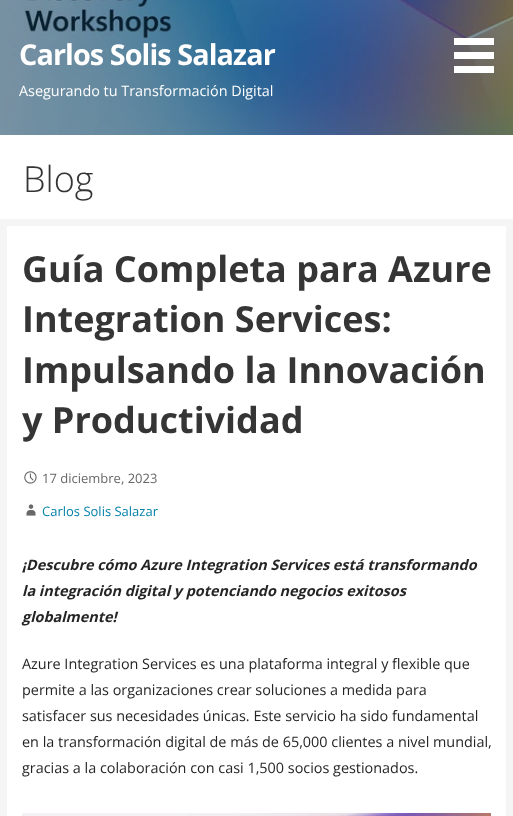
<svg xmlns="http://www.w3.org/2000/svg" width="513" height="816">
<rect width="100%" height="100%" fill="#f5f5f5"/>
<image x="0" y="0" width="513" height="135" href="media/1.png"/>
<text x="19" y="65" style="font-family:Open Sans;font-size:28.75px;font-weight:bold;letter-spacing:-0.9px;fill:#fff">Carlos Solis Salazar</text>
<text x="19" y="96" style="font-family:Open Sans;font-size:14.4px;fill:#fff">Asegurando tu Transformación Digital</text>
<rect x="454" y="38" width="40" height="7" fill="#fff"/>
<rect x="454" y="52" width="40" height="7" fill="#fff"/>
<rect x="454" y="66" width="40" height="7" fill="#fff"/>
<rect y="135" width="513" height="84" fill="#fff"/>
<text x="23" y="192" style="font-family:Open Sans;font-size:36px;font-weight:300;fill:#353535">Blog</text>
<rect x="7" y="226" width="499" height="590" fill="#fff"/>
<text x="22" y="282" style="font-family:Open Sans;font-size:36px;font-weight:bold;fill:#353535">Guía Completa para Azure</text>
<text x="22" y="332" style="font-family:Open Sans;font-size:36px;font-weight:bold;fill:#353535">Integration Services:</text>
<text x="22" y="383" style="font-family:Open Sans;font-size:36px;font-weight:bold;fill:#353535">Impulsando la Innovación</text>
<text x="22" y="433" style="font-family:Open Sans;font-size:36px;font-weight:bold;fill:#353535">y Productividad</text>
<image x="24" y="471" width="13" height="13" href="media/2.png"/>
<text x="42" y="483" style="font-family:Open Sans;font-size:13px;fill:#686868">17 diciembre, 2023</text>
<image x="26" y="504" width="10" height="12" href="media/3.png"/>
<text x="42" y="516" style="font-family:Open Sans;font-size:13px;fill:#0581a9">Carlos Solis Salazar</text>
<text x="22" y="570" style="font-family:Open Sans;font-size:14.4px;font-weight:bold;font-style:italic;fill:#252525">¡Descubre cómo Azure Integration Services está transformando</text>
<text x="22" y="596" style="font-family:Open Sans;font-size:14.4px;font-weight:bold;font-style:italic;fill:#252525">la integración digital y potenciando negocios exitosos</text>
<text x="22" y="622" style="font-family:Open Sans;font-size:14.4px;font-weight:bold;font-style:italic;fill:#252525">globalmente!</text>
<text x="22" y="669" style="font-family:Open Sans;font-size:14.4px;fill:#252525">Azure Integration Services es una plataforma integral y flexible que</text>
<text x="22" y="695" style="font-family:Open Sans;font-size:14.4px;fill:#252525">permite a las organizaciones crear soluciones a medida para</text>
<text x="22" y="721" style="font-family:Open Sans;font-size:14.4px;fill:#252525">satisfacer sus necesidades únicas. Este servicio ha sido fundamental</text>
<text x="22" y="747" style="font-family:Open Sans;font-size:14.4px;fill:#252525">en la transformación digital de más de 65,000 clientes a nivel mundial,</text>
<text x="22" y="773" style="font-family:Open Sans;font-size:14.4px;fill:#252525">gracias a la colaboración con casi 1,500 socios gestionados.</text>
<image x="22" y="813" width="469" height="3" href="media/4.png"/>
</svg>
